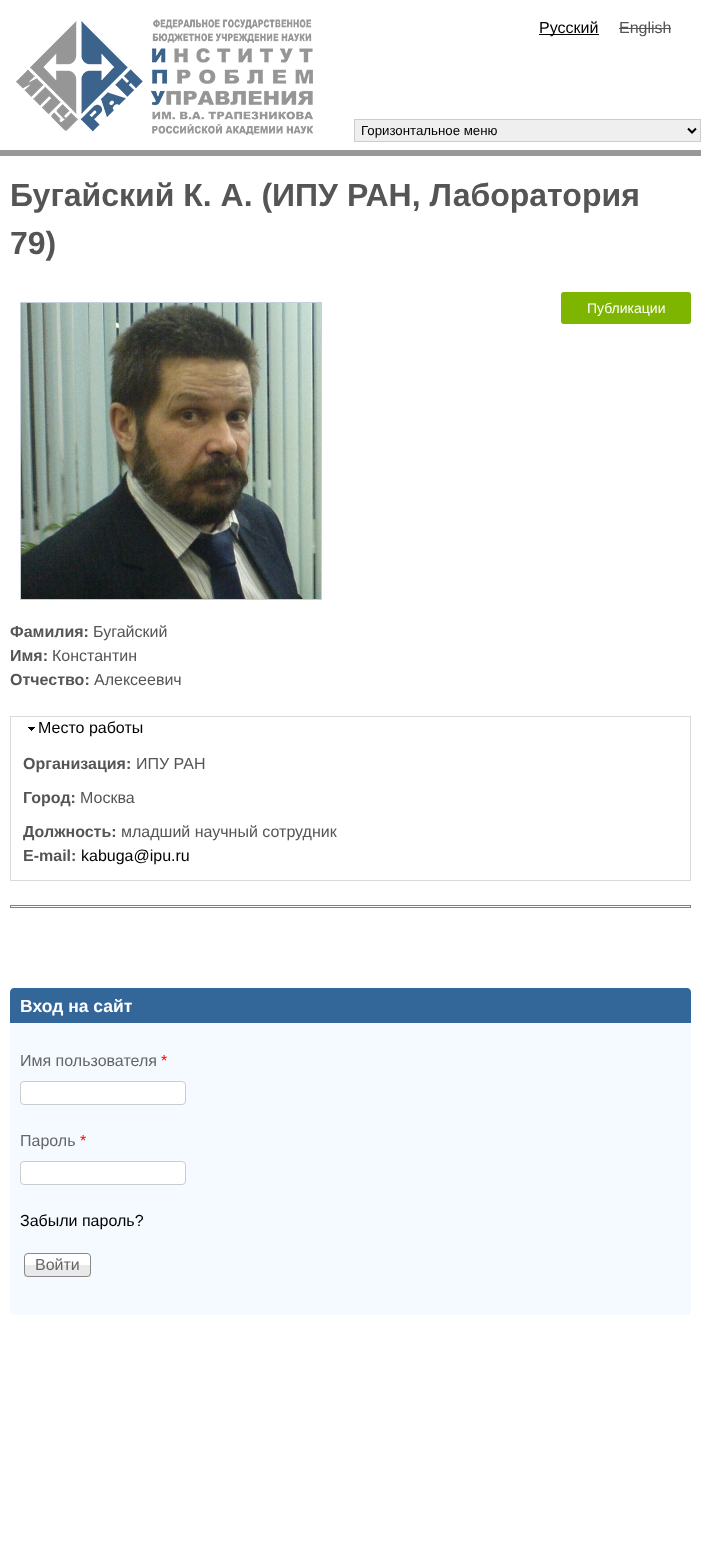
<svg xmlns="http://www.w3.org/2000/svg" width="701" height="1548">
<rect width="100%" height="100%" fill="#fff"/>
<image x="16" y="19" width="297" height="116" href="media/1.png"/>
<rect x="539" y="34" width="60" height="1" fill="#000"/>
<text x="539" y="33" style="font-family:Liberation Sans;font-size:16px;fill:#000">Русский</text>
<text x="619" y="33" style="font-family:Liberation Sans;font-size:16px;fill:#555">English</text>
<rect x="619" y="28" width="52" height="1" fill="#555"/>
<rect y="150" width="701" height="6" fill="#999"/>
<rect x="354.5" y="119.5" width="346" height="22" fill="#efefef" stroke="#ccc"/>
<path d="M688 128.5l4 4l4-4" fill="none" stroke="#000" stroke-width="2"/>
<text x="361" y="135" style="font-family:Liberation Sans;font-size:13.25px;fill:#000">Горизонтальное меню</text>
<text x="10" y="206" style="font-family:Liberation Sans;font-size:32px;font-weight:bold;fill:#555">Бугайский К. А. (ИПУ РАН, Лаборатория</text>
<text x="10" y="254" style="font-family:Liberation Sans;font-size:32px;font-weight:bold;fill:#555">79)</text>
<rect x="20.5" y="302.5" width="301" height="297" fill="none" stroke="#c7d0d8"/>
<image x="21" y="303" width="300" height="296" href="media/2.png"/>
<rect x="561" y="292" width="130" height="32" rx="3" fill="#7db500"/>
<text x="587" y="313" style="font-family:Liberation Sans;font-size:14px;fill:#fff">Публикации</text>
<text x="10" y="637" style="font-family:Liberation Sans;font-size:16px;font-weight:bold;fill:#555">Фамилия:</text>
<text x="93" y="637" style="font-family:Liberation Sans;font-size:16px;fill:#555">Бугайский</text>
<text x="10" y="661" style="font-family:Liberation Sans;font-size:16px;font-weight:bold;fill:#555">Имя:</text>
<text x="52" y="661" style="font-family:Liberation Sans;font-size:16px;fill:#555">Константин</text>
<text x="10" y="685" style="font-family:Liberation Sans;font-size:16px;font-weight:bold;fill:#555">Отчество:</text>
<text x="94" y="685" style="font-family:Liberation Sans;font-size:16px;fill:#555">Алексеевич</text>
<rect x="10.5" y="716.5" width="680" height="164" fill="none" stroke="#dadada"/>
<image x="28" y="727" width="7" height="4" href="media/3.png"/>
<text x="38" y="733" style="font-family:Liberation Sans;font-size:16px;fill:#000">Место работы</text>
<text x="23" y="769" style="font-family:Liberation Sans;font-size:16px;font-weight:bold;fill:#555">Организация:</text>
<text x="136" y="769" style="font-family:Liberation Sans;font-size:16px;fill:#555">ИПУ РАН</text>
<text x="23" y="803" style="font-family:Liberation Sans;font-size:16px;font-weight:bold;fill:#555">Город:</text>
<text x="80" y="803" style="font-family:Liberation Sans;font-size:16px;fill:#555">Москва</text>
<text x="23" y="837" style="font-family:Liberation Sans;font-size:16px;font-weight:bold;fill:#555">Должность:</text>
<text x="121" y="837" style="font-family:Liberation Sans;font-size:16px;fill:#555">младший научный сотрудник</text>
<text x="23" y="861" style="font-family:Liberation Sans;font-size:16px;font-weight:bold;fill:#555">E-mail:</text>
<text x="81" y="861" style="font-family:Liberation Sans;font-size:16px;fill:#000">kabuga@ipu.ru</text>
<rect x="10.5" y="905.5" width="680" height="2" fill="none" stroke="#808080"/>
<rect x="10" y="988" width="681" height="327" rx="4" fill="#f4faff"/>
<path d="M14 988h673c2 0 4 2 4 4v31h-681v-31c0-2 2-4 4-4z" fill="#369"/>
<text x="20" y="1012" style="font-family:Liberation Sans;font-size:17.5px;font-weight:bold;fill:#fff">Вход на сайт</text>
<text x="20" y="1066" style="font-family:Liberation Sans;font-size:16px;fill:#666">Имя пользователя</text>
<text x="161" y="1066" style="font-family:Liberation Sans;font-size:16px;fill:#f00">*</text>
<rect x="20.5" y="1081.5" width="165" height="23" rx="3.5" fill="#fff" stroke="#ccc"/>
<text x="20" y="1146" style="font-family:Liberation Sans;font-size:16px;fill:#666">Пароль</text>
<text x="80" y="1146" style="font-family:Liberation Sans;font-size:16px;fill:#f00">*</text>
<rect x="20.5" y="1161.5" width="165" height="23" rx="3.5" fill="#fff" stroke="#ccc"/>
<text x="20" y="1226" style="font-family:Liberation Sans;font-size:16px;fill:#000">Забыли пароль?</text>
<rect x="24" y="1253" width="67" height="24" rx="4" fill="#fff"/>
<rect x="24" y="1265" width="67" height="12" fill="#e9e9e9"/>
<rect x="24.5" y="1253.5" width="66" height="23" rx="3.5" fill="none" stroke="#888"/>
<text x="35" y="1270" style="font-family:Liberation Sans;font-size:16px;fill:#666">Войти</text>
</svg>
